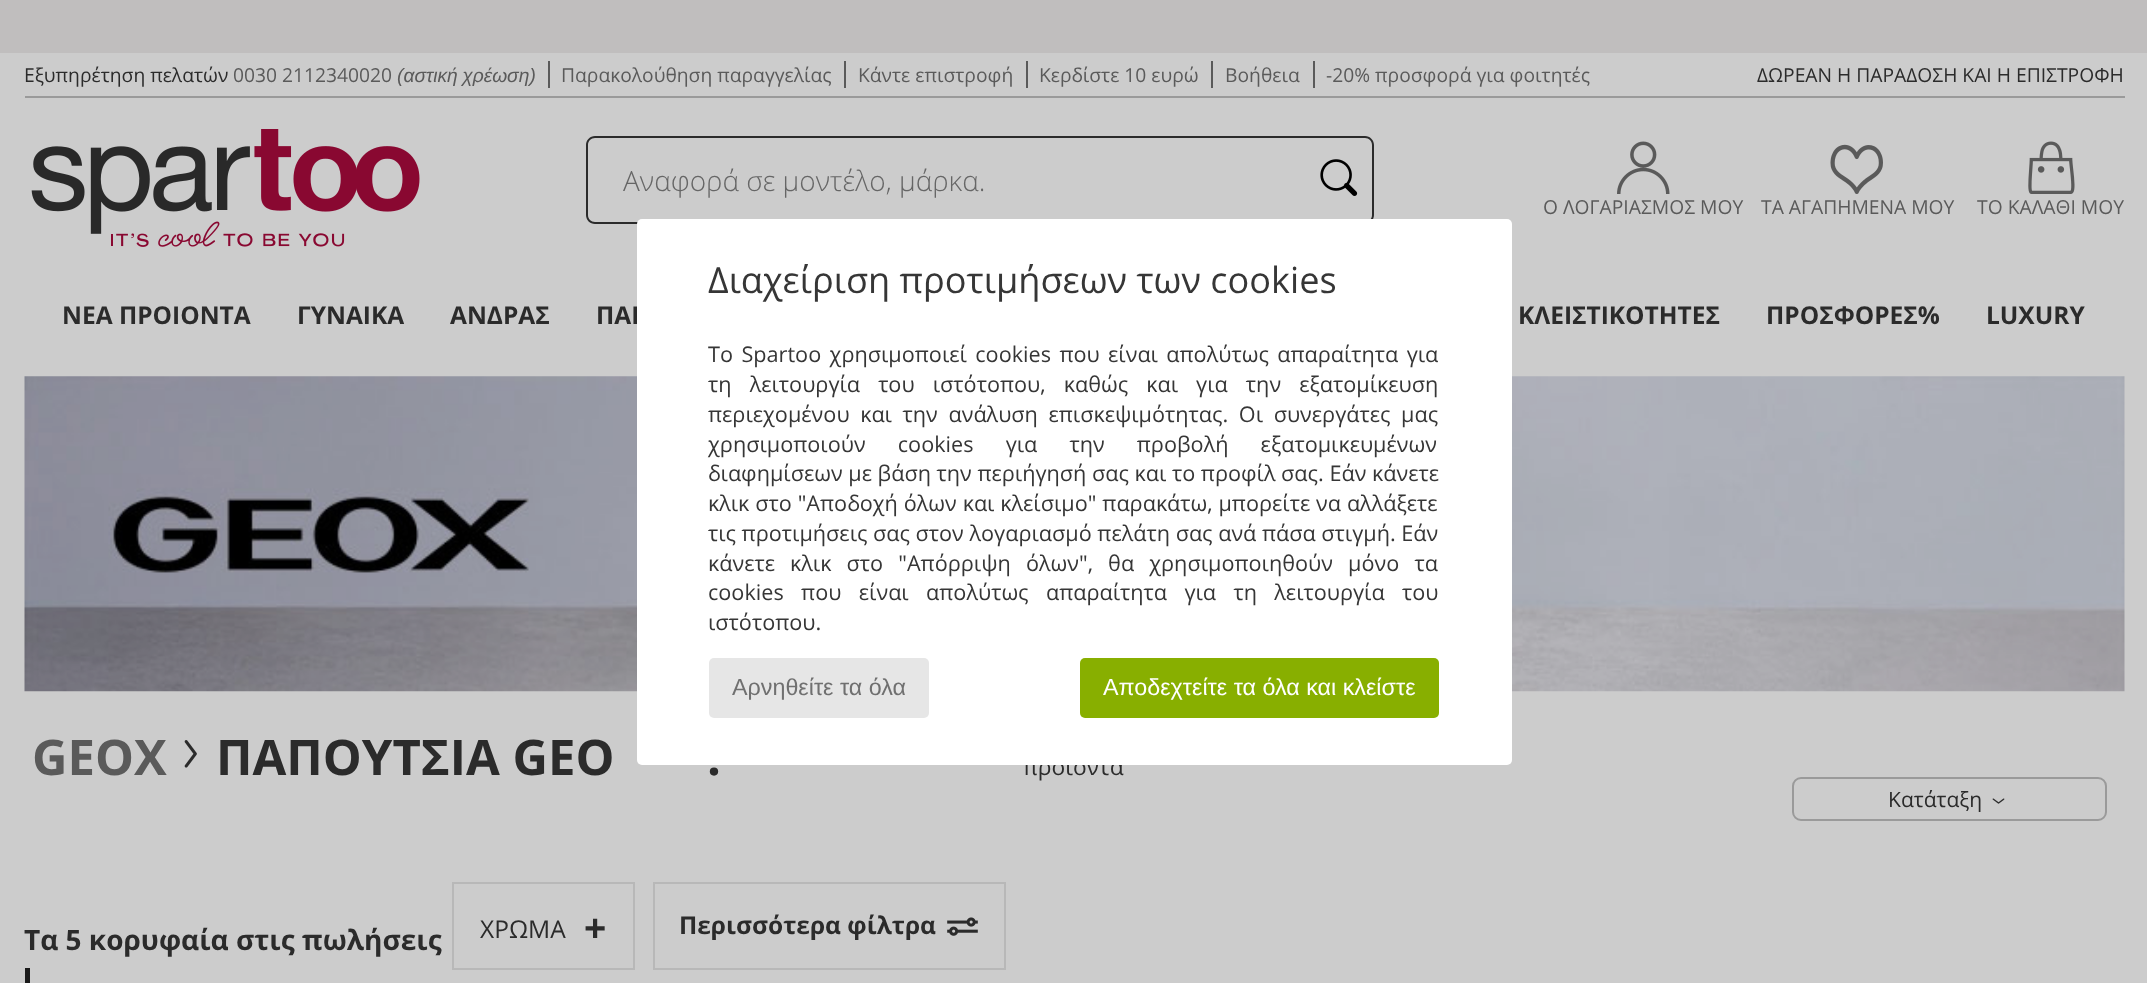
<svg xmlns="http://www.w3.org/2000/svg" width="2147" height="983">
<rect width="100%" height="100%" fill="#ccc"/>
<rect width="2147" height="53" fill="#c0bebe"/>
<rect x="25" y="96" width="2100" height="2" fill="#9a9a9a"/>
<rect x="548" y="61" width="2" height="27" fill="#5a5a5a"/>
<text x="24" y="82" style="font-family:Open Sans;font-size:19.25px;fill:#2b2b2b">Εξυπηρέτηση πελατών</text>
<text x="233" y="82" style="font-family:Open Sans;font-size:19.25px;fill:#5a5a5a">0030 2112340020</text>
<text x="397" y="82" word-spacing="-1" style="font-family:Liberation Sans;font-size:19.25px;font-style:italic;fill:#5a5a5a">(αστική χρέωση)</text>
<rect x="844" y="61" width="2" height="27" fill="#5a5a5a"/>
<text x="561" y="82" style="font-family:Open Sans;font-size:19.25px;fill:#5a5a5a">Παρακολούθηση παραγγελίας</text>
<rect x="1026" y="61" width="2" height="27" fill="#5a5a5a"/>
<text x="858" y="82" style="font-family:Open Sans;font-size:19.25px;fill:#5a5a5a">Κάντε επιστροφή</text>
<rect x="1211" y="61" width="2" height="27" fill="#5a5a5a"/>
<text x="1039" y="82" style="font-family:Open Sans;font-size:19.25px;fill:#5a5a5a">Κερδίστε 10 ευρώ</text>
<rect x="1313" y="61" width="2" height="27" fill="#5a5a5a"/>
<text x="1225" y="82" style="font-family:Open Sans;font-size:19.25px;fill:#5a5a5a">Βοήθεια</text>
<text x="1326" y="82" style="font-family:Open Sans;font-size:19.25px;fill:#5a5a5a">-20% προσφορά για φοιτητές</text>
<text x="1757" y="82" style="font-family:Open Sans;font-size:19.25px;fill:#2b2b2b">ΔΩΡΕΑΝ Η ΠΑΡΑΔΟΣΗ ΚΑΙ Η ΕΠΙΣΤΡΟΦΗ</text>
<image x="31" y="129" width="389" height="118" href="media/1.png"/>
<path d="M595 136h709v88h-709c-5 0-9-4-9-9v-70c0-5 4-9 9-9zm0 2h709v84h-709c-4 0-7-3-7-7v-70c0-4 3-7 7-7z" fill="#2b2b2b" fill-rule="evenodd"/>
<text x="623" y="191" style="font-family:Open Sans;font-size:28px;font-weight:300;fill:#666">Αναφορά σε μοντέλο, μάρκα.</text>
<path d="M1304 136h61c5 0 9 4 9 9v70c0 5-4 9-9 9h-61zm0 2h61c4 0 7 3 7 7v70c0 4-3 7-7 7h-61z" fill="#2b2b2b" fill-rule="evenodd"/>
<image x="1320" y="159" width="38" height="37" href="media/2.png"/>
<image x="1617" y="141" width="53" height="53" href="media/3.png"/>
<text x="1543" y="214" style="font-family:Open Sans;font-size:19.25px;fill:#5a5a5a">Ο ΛΟΓΑΡΙΑΣΜΟΣ ΜΟΥ</text>
<image x="1830" y="144" width="53" height="50" href="media/4.png"/>
<text x="1761" y="214" style="font-family:Open Sans;font-size:19.25px;fill:#5a5a5a">ΤΑ ΑΓΑΠΗΜΕΝΑ ΜΟΥ</text>
<image x="2028" y="141" width="47" height="53" href="media/5.png"/>
<text x="1977" y="214" style="font-family:Open Sans;font-size:19.25px;fill:#5a5a5a">ΤΟ ΚΑΛΑΘΙ ΜΟΥ</text>
<text x="62" y="324" style="font-family:Open Sans;font-size:24.5px;font-weight:bold;fill:#2b2b2b">ΝΕΑ ΠΡΟΙΟΝΤΑ</text>
<text x="297" y="324" style="font-family:Open Sans;font-size:24.5px;font-weight:bold;fill:#2b2b2b">ΓΥΝΑΙΚΑ</text>
<text x="450" y="324" style="font-family:Open Sans;font-size:24.5px;font-weight:bold;fill:#2b2b2b">ΑΝΔΡΑΣ</text>
<text x="596" y="324" style="font-family:Open Sans;font-size:24.5px;font-weight:bold;fill:#2b2b2b">ΠΑΙ</text>
<text x="1518" y="324" style="font-family:Open Sans;font-size:24.5px;font-weight:bold;fill:#2b2b2b">ΚΛΕΙΣΤΙΚΟΤΗΤΕΣ</text>
<text x="1766" y="324" style="font-family:Open Sans;font-size:24.5px;font-weight:bold;fill:#2b2b2b">ΠΡΟΣΦΟΡΕΣ%</text>
<text x="1986" y="324" style="font-family:Open Sans;font-size:24.5px;font-weight:bold;fill:#2b2b2b">LUXURY</text>
<image x="24" y="376" width="2101" height="316" href="media/6.png"/>
<text x="32" y="775" style="font-family:Open Sans;font-size:49px;font-weight:bold;fill:#5a5a5a">GEOX</text>
<image x="184" y="740" width="13" height="28" href="media/7.png"/>
<text x="216" y="775" style="font-family:Open Sans;font-size:49px;font-weight:bold;fill:#2b2b2b">ΠΑΠΟΥΤΣΙΑ GEO</text>
<text x="707" y="775" style="font-family:Open Sans;font-size:49px;font-weight:bold;fill:#2b2b2b">.</text>
<text x="1023" y="775" style="font-family:Open Sans;font-size:22.75px;fill:#2b2b2b">προϊόντα</text>
<rect x="1793" y="778" width="313" height="42" rx="8" fill="none" stroke="#9a9a9a" stroke-width="2"/>
<text x="1888" y="807" style="font-family:Open Sans;font-size:21px;fill:#2b2b2b">Κατάταξη</text>
<image x="1992" y="798" width="13" height="6" href="media/8.png"/>
<text x="24" y="950" style="font-family:Open Sans;font-size:28px;font-weight:bold;fill:#2b2b2b">Τα 5 κορυφαία στις πωλήσεις</text>
<rect x="25" y="968" width="5" height="15" fill="#1a1a1a"/>
<rect x="453" y="883" width="181" height="86" fill="none" stroke="#b8b8b8" stroke-width="2"/>
<text x="480" y="938" style="font-family:Open Sans;font-size:24.5px;fill:#2b2b2b">ΧΡΩΜΑ</text>
<text x="584" y="941" style="font-family:Liberation Sans;font-size:38px;font-weight:bold;fill:#2b2b2b">+</text>
<rect x="654" y="883" width="351" height="86" fill="none" stroke="#b8b8b8" stroke-width="2"/>
<text x="679" y="934" style="font-family:Open Sans;font-size:24.5px;font-weight:bold;fill:#2b2b2b">Περισσότερα φίλτρα</text>
<image x="947" y="917" width="31" height="19" href="media/9.png"/>
<rect x="637" y="219" width="875" height="546" rx="5" fill="#fff"/>
<text x="708" y="293" style="font-family:Open Sans;font-size:36.1px;fill:#363636">Διαχείριση προτιμήσεων των cookies</text>
<text x="708" y="362" word-spacing="2.75" style="font-family:Open Sans;font-size:21.65px;fill:#363636">Το Spartoo χρησιμοποιεί cookies που είναι απολύτως απαραίτητα για</text>
<text x="708" y="392" word-spacing="12.5" style="font-family:Open Sans;font-size:21.65px;fill:#363636">τη λειτουργία του ιστότοπου, καθώς και για την εξατομίκευση</text>
<text x="708" y="422" word-spacing="5" style="font-family:Open Sans;font-size:21.65px;fill:#363636">περιεχομένου και την ανάλυση επισκεψιμότητας. Οι συνεργάτες μας</text>
<text x="708" y="452" word-spacing="26.5" style="font-family:Open Sans;font-size:21.65px;fill:#363636">χρησιμοποιούν cookies για την προβολή εξατομικευμένων</text>
<text x="708" y="481" style="font-family:Open Sans;font-size:21.65px;fill:#363636">διαφημίσεων με βάση την περιήγησή σας και το προφίλ σας. Εάν κάνετε</text>
<text x="708" y="511" word-spacing="0.25" style="font-family:Open Sans;font-size:21.65px;fill:#363636">κλικ στο "Αποδοχή όλων και κλείσιμο" παρακάτω, μπορείτε να αλλάξετε</text>
<text x="708" y="541" style="font-family:Open Sans;font-size:21.65px;fill:#363636">τις προτιμήσεις σας στον λογαριασμό πελάτη σας ανά πάσα στιγμή. Εάν</text>
<text x="708" y="571" word-spacing="9.5" style="font-family:Open Sans;font-size:21.65px;fill:#363636">κάνετε κλικ στο "Απόρριψη όλων", θα χρησιμοποιηθούν μόνο τα</text>
<text x="708" y="600" word-spacing="11.75" style="font-family:Open Sans;font-size:21.65px;fill:#363636">cookies που είναι απολύτως απαραίτητα για τη λειτουργία του</text>
<text x="708" y="630" style="font-family:Open Sans;font-size:21.65px;fill:#363636">ιστότοπου.</text>
<rect x="709" y="658" width="220" height="60" rx="5" fill="#e6e6e6"/>
<text x="732" y="695" style="font-family:Liberation Sans;font-size:23.3px;fill:#707070">Αρνηθείτε τα όλα</text>
<rect x="1080" y="658" width="359" height="60" rx="5" fill="#88af00"/>
<text x="1103" y="695" style="font-family:Liberation Sans;font-size:23.3px;fill:#fff">Αποδεχτείτε τα όλα και κλείστε</text>
</svg>
